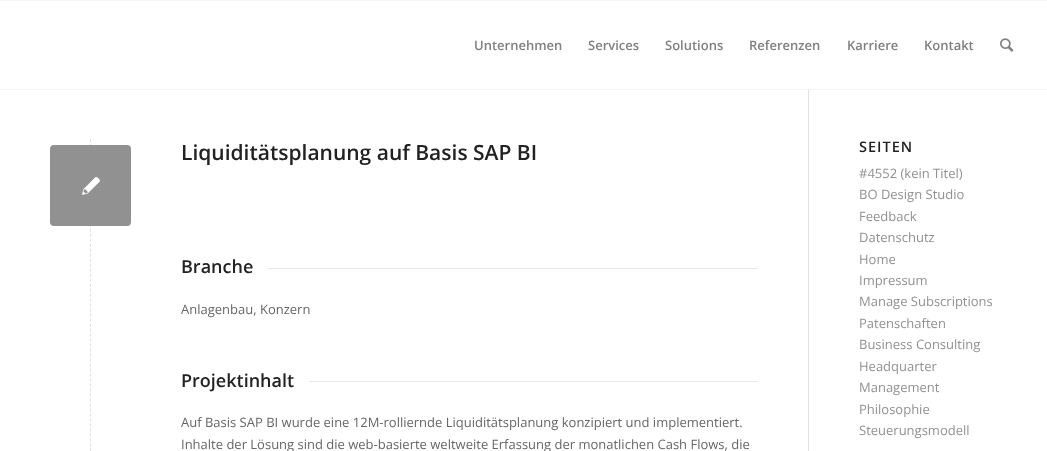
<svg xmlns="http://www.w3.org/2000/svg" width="1047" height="451">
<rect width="100%" height="100%" fill="#fff"/>
<rect width="1047" height="1" fill="#f4f4f4"/>
<rect x="808" y="89" width="1" height="362" fill="#e1e1e1"/>
<rect y="89" width="1047" height="1" fill="#f4f4f4"/>
<text x="474" y="50" style="font-family:Open Sans;font-size:13px;font-weight:600;fill:#808080">Unternehmen</text>
<text x="588" y="50" style="font-family:Open Sans;font-size:13px;font-weight:600;fill:#808080">Services</text>
<text x="665" y="50" style="font-family:Open Sans;font-size:13px;font-weight:600;fill:#808080">Solutions</text>
<text x="749" y="50" style="font-family:Open Sans;font-size:13px;font-weight:600;fill:#808080">Referenzen</text>
<text x="847" y="50" style="font-family:Open Sans;font-size:13px;font-weight:600;fill:#808080">Karriere</text>
<text x="924" y="50" style="font-family:Open Sans;font-size:13px;font-weight:600;fill:#808080">Kontakt</text>
<image x="1000" y="38" width="14" height="14" href="media/1.png"/>
<path d="M90.5 139v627" fill="none" stroke="#e1e1e1" stroke-dasharray="3 1.99"/>
<text x="181" y="160" style="font-family:Open Sans;font-size:21px;font-weight:600;fill:#222">Liquiditätsplanung auf Basis SAP BI</text>
<text x="181" y="273" style="font-family:Open Sans;font-size:18px;font-weight:600;fill:#222">Branche</text>
<rect x="268" y="268" width="490" height="1" fill="#e8e8e8"/>
<text x="181" y="314" style="font-family:Open Sans;font-size:13px;fill:#666">Anlagenbau, Konzern</text>
<text x="181" y="387" style="font-family:Open Sans;font-size:18px;font-weight:600;fill:#222">Projektinhalt</text>
<rect x="309" y="381" width="449" height="1" fill="#e8e8e8"/>
<text x="181" y="427" style="font-family:Open Sans;font-size:13px;fill:#666">Auf Basis SAP BI wurde eine 12M-rolliernde Liquiditätsplanung konzipiert und implementiert.</text>
<text x="181" y="449" style="font-family:Open Sans;font-size:13px;fill:#666">Inhalte der Lösung sind die web-basierte weltweite Erfassung der monatlichen Cash Flows, die</text>
<rect x="50" y="145" width="81" height="81" rx="4" fill="#919191"/>
<image x="82" y="177" width="18" height="18" href="media/2.png"/>
<text x="859" y="152" style="font-family:Open Sans;font-size:14.5px;font-weight:600;letter-spacing:1px;fill:#222">SEITEN</text>
<text x="859" y="178" style="font-family:Open Sans;font-size:13px;fill:#919191">#4552 (kein Titel)</text>
<text x="859" y="199" style="font-family:Open Sans;font-size:13px;fill:#919191">BO Design Studio</text>
<text x="859" y="221" style="font-family:Open Sans;font-size:13px;fill:#919191">Feedback</text>
<text x="859" y="242" style="font-family:Open Sans;font-size:13px;fill:#919191">Datenschutz</text>
<text x="859" y="264" style="font-family:Open Sans;font-size:13px;fill:#919191">Home</text>
<text x="859" y="285" style="font-family:Open Sans;font-size:13px;fill:#919191">Impressum</text>
<text x="859" y="306" style="font-family:Open Sans;font-size:13px;fill:#919191">Manage Subscriptions</text>
<text x="859" y="328" style="font-family:Open Sans;font-size:13px;fill:#919191">Patenschaften</text>
<text x="859" y="349" style="font-family:Open Sans;font-size:13px;fill:#919191">Business Consulting</text>
<text x="859" y="371" style="font-family:Open Sans;font-size:13px;fill:#919191">Headquarter</text>
<text x="859" y="392" style="font-family:Open Sans;font-size:13px;fill:#919191">Management</text>
<text x="859" y="414" style="font-family:Open Sans;font-size:13px;fill:#919191">Philosophie</text>
<text x="859" y="435" style="font-family:Open Sans;font-size:13px;fill:#919191">Steuerungsmodell</text>
</svg>
